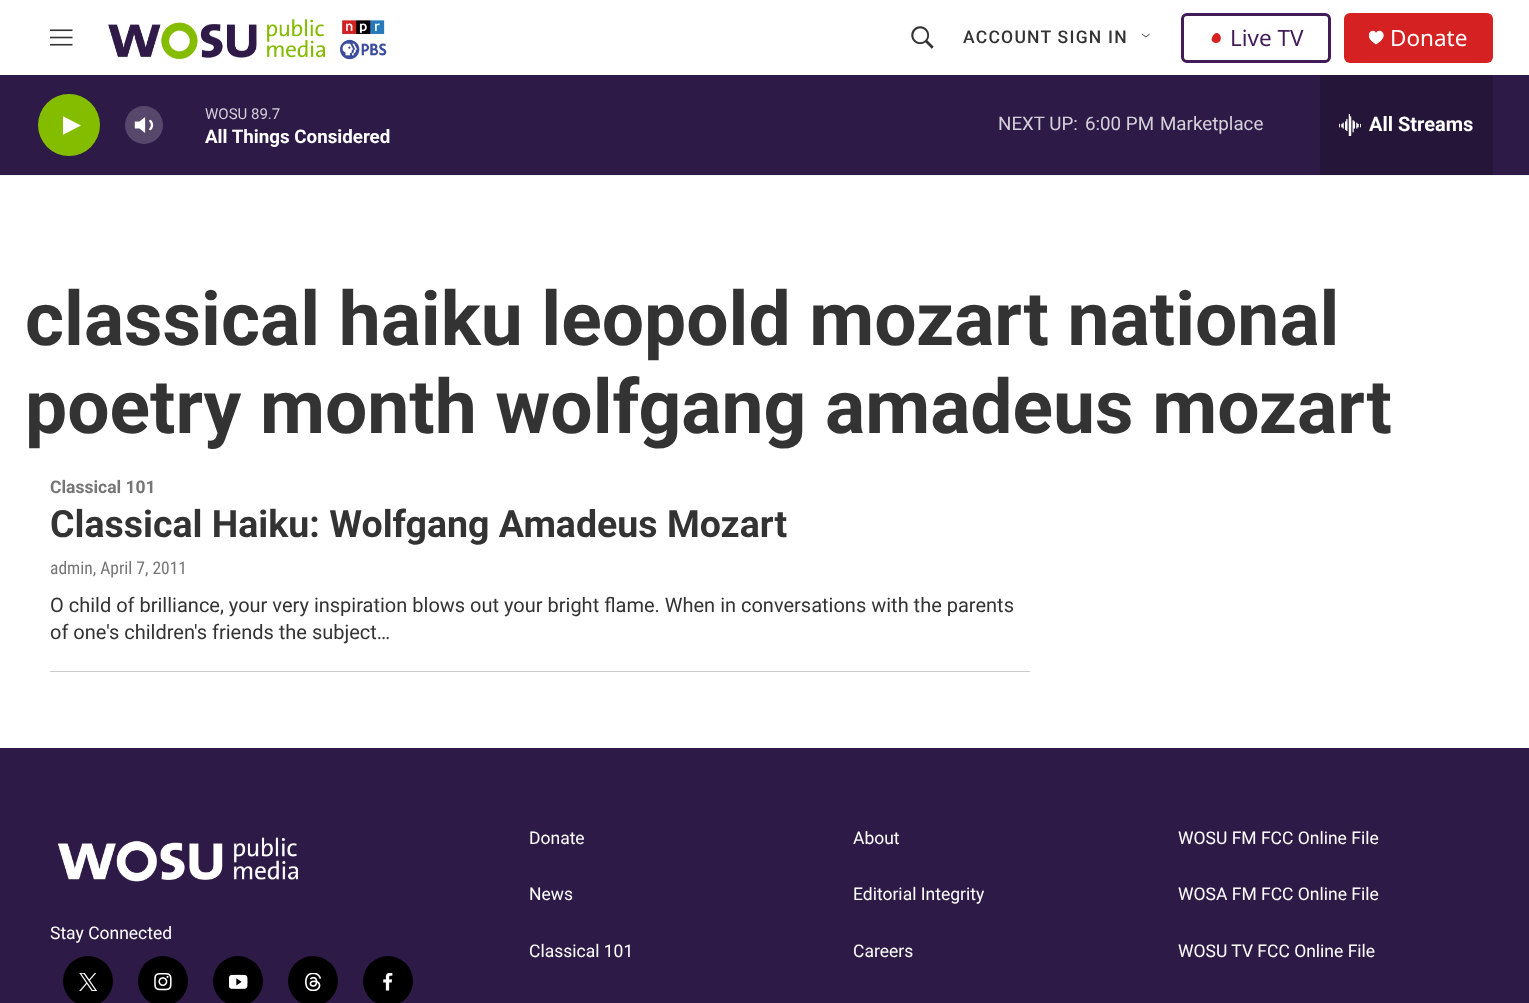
<svg xmlns="http://www.w3.org/2000/svg" width="1529" height="1003">
<defs>
<clipPath id="clip1"><rect x="1369" y="30" width="15" height="15"/></clipPath>
<clipPath id="clip2"><rect x="63" y="114" width="18" height="24"/></clipPath>
</defs>
<rect width="100%" height="100%" fill="#fff"/>
<rect y="175" width="1529" height="1" fill="#f5f5f5"/>
<image x="50" y="29" width="23" height="17" href="media/1.png"/>
<image x="108" y="19" width="279" height="41" href="media/2.png"/>
<image x="911" y="26" width="23" height="23" href="media/3.png"/>
<text x="963" y="43" style="font-family:Roboto;font-size:17.5px;font-weight:500;letter-spacing:1.25px;fill:#333">ACCOUNT SIGN IN</text>
<image x="1141" y="33" width="9" height="5" href="media/4.png"/>
<rect x="1182.5" y="14.5" width="147" height="47" rx="4.5" fill="none" stroke="#411c58" stroke-width="3"/>
<path d="M1211.5 40c0-1.5 .5-3 1.5-4.5c6-8.5 12.5 7 3 7.5c-2 0-3.5-1-4.5-3z" fill="#d62021"/>
<text x="1230" y="46" style="font-family:Noto Sans;font-size:22.5px;fill:#411c58">Live TV</text>
<rect x="1344" y="13" width="149" height="50" rx="6" fill="#d52122"/>
<g clip-path="url(#clip1)">
<path d="M1376 33c-2-6.5-15.5 2 0 11.5c16-9.5 2.5-18 0-11.5z" fill="#fff"/>
</g>
<text x="1390" y="46" style="font-family:Noto Sans;font-size:22.5px;fill:#fff">Donate</text>
<rect y="75" width="1529" height="100" fill="#2e1a47"/>
<circle cx="69" cy="125" r="31" fill="#84bd00"/>
<g clip-path="url(#clip2)">
<path d="M62.5 116l18.5 9.5l-18.5 9.5z" fill="#fff"/>
</g>
<image x="134" y="117" width="20" height="16" href="media/5.png"/>
<circle cx="144" cy="125" r="19" fill="#ffffff33"/>
<text x="205" y="119" style="font-family:Roboto;font-size:15px;fill:#d5d1da">WOSU 89.7</text>
<text x="205" y="143" style="font-family:'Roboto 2';font-size:18.75px;font-weight:bold;fill:#fff">All Things Considered</text>
<text x="998" y="130" style="font-family:Roboto;font-size:18.75px;fill:#d5d1da">NEXT UP:</text>
<text x="1085" y="130" style="font-family:Roboto;font-size:18.75px;fill:#d5d1da">6:00 PM</text>
<text x="1160" y="130" style="font-family:Roboto;font-size:18.75px;fill:#d5d1da">Marketplace</text>
<rect x="1320" y="75" width="173" height="100" fill="#251539"/>
<image x="1339" y="114" width="22" height="22" href="media/6.png"/>
<text x="1369" y="131" style="font-family:'Roboto 2';font-size:20px;font-weight:bold;fill:#fff">All Streams</text>
<text x="25" y="345" style="font-family:Roboto;font-size:75px;font-weight:bold;fill:#333">classical haiku leopold mozart national</text>
<text x="25" y="433" style="font-family:Roboto;font-size:75px;font-weight:bold;fill:#333">poetry month wolfgang amadeus mozart</text>
<rect x="50" y="671" width="980" height="1" fill="#ccc"/>
<text x="50" y="493" style="font-family:Roboto;font-size:17.5px;font-weight:bold;fill:#767676">Classical 101</text>
<text x="50" y="537" style="font-family:Roboto;font-size:37.5px;font-weight:bold;fill:#333">Classical Haiku: Wolfgang Amadeus Mozart</text>
<text x="50" y="574" style="font-family:Roboto Condensed;font-size:17.5px;fill:#767676">admin, April 7, 2011</text>
<text x="50" y="612" style="font-family:Roboto;font-size:20px;fill:#333">O child of brilliance, your very inspiration blows out your bright flame. When in conversations with the parents</text>
<text x="50" y="639" style="font-family:Roboto;font-size:20px;fill:#333">of one's children's friends the subject…</text>
<rect y="748" width="1529" height="255" fill="#2e1a47"/>
<image x="57" y="837" width="241" height="45" href="media/7.png"/>
<text x="50" y="939" style="font-family:Roboto;font-size:17.5px;fill:#fff">Stay Connected</text>
<circle cx="88" cy="981" r="25" fill="#000"/>
<image x="79" y="973" width="18" height="18" href="media/8.png"/>
<circle cx="163" cy="981" r="25" fill="#000"/>
<image x="154" y="973" width="18" height="18" href="media/9.png"/>
<circle cx="238" cy="981" r="25" fill="#000"/>
<image x="229" y="974" width="19" height="15" href="media/10.png"/>
<circle cx="313" cy="981" r="25" fill="#000"/>
<image x="305" y="973" width="17" height="18" href="media/11.png"/>
<circle cx="388" cy="981" r="25" fill="#000"/>
<image x="383" y="973" width="10" height="18" href="media/12.png"/>
<text x="529" y="844" style="font-family:Roboto;font-size:17.5px;fill:#fff">Donate</text>
<text x="853" y="844" style="font-family:Roboto;font-size:17.5px;fill:#fff">About</text>
<text x="1178" y="844" style="font-family:Roboto;font-size:17.5px;fill:#fff">WOSU FM FCC Online File</text>
<text x="529" y="900" style="font-family:Roboto;font-size:17.5px;fill:#fff">News</text>
<text x="853" y="900" style="font-family:Roboto;font-size:17.5px;fill:#fff">Editorial Integrity</text>
<text x="1178" y="900" style="font-family:Roboto;font-size:17.5px;fill:#fff">WOSA FM FCC Online File</text>
<text x="529" y="957" style="font-family:Roboto;font-size:17.5px;fill:#fff">Classical 101</text>
<text x="853" y="957" style="font-family:Roboto;font-size:17.5px;fill:#fff">Careers</text>
<text x="1178" y="957" style="font-family:Roboto;font-size:17.5px;fill:#fff">WOSU TV FCC Online File</text>
</svg>
